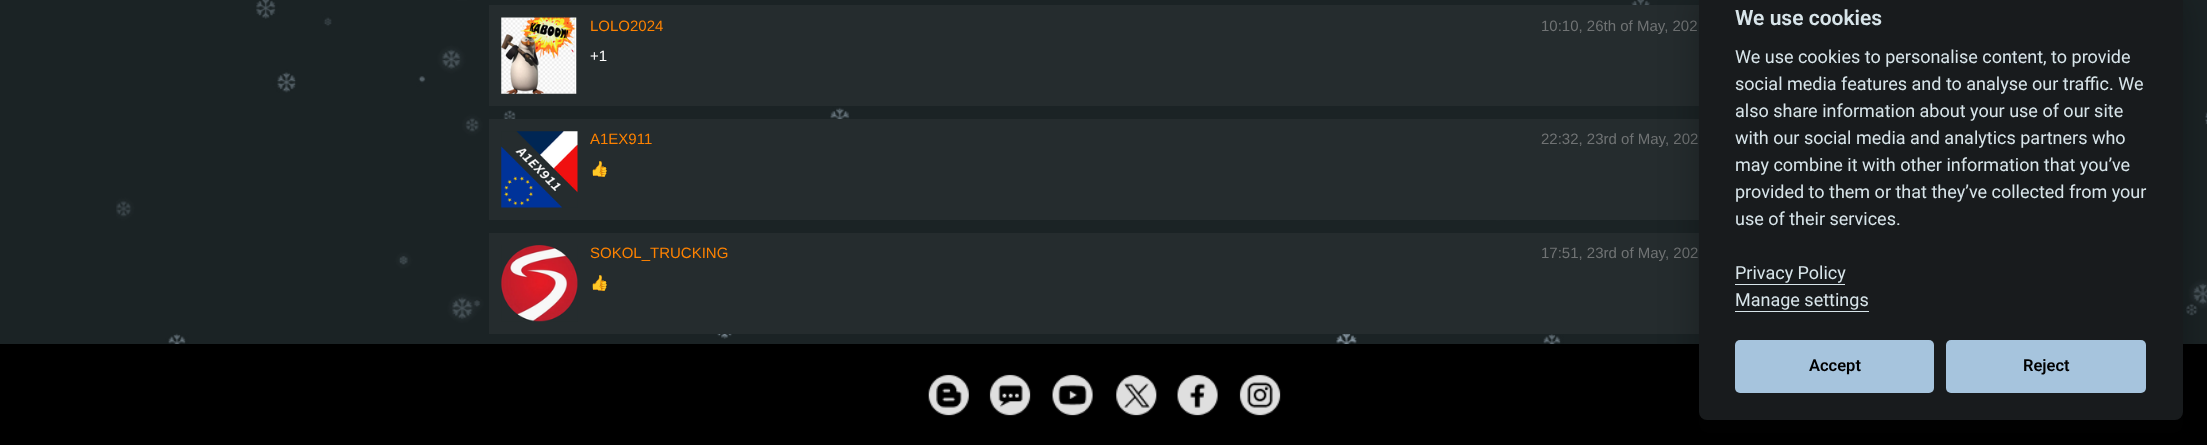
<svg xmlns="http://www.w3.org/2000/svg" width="2207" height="445">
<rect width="100%" height="100%" fill="#1b2325"/>
<image x="116" y="0" width="2091" height="344" href="media/1.png"/>
<rect x="489" y="5" width="1210" height="101" fill="#252c2e"/>
<image x="501" y="17" width="76" height="77" href="media/2.png"/>
<text x="590" y="31" style="font-family:Liberation Sans;font-size:15px;fill:#fe8200">LOLO2024</text>
<text x="1541" y="31" style="font-family:Liberation Sans;font-size:15px;fill:#707374">10:10, 26th of May, 202</text>
<text x="590" y="61" style="font-family:Liberation Sans;font-size:15px;fill:#fff">+1</text>
<rect x="489" y="119" width="1210" height="101" fill="#252c2e"/>
<image x="501" y="131" width="77" height="77" href="media/3.png"/>
<text x="590" y="144" style="font-family:Liberation Sans;font-size:15px;fill:#fe8200">A1EX911</text>
<text x="1541" y="144" style="font-family:Liberation Sans;font-size:15px;fill:#707374">22:32, 23rd of May, 202</text>
<text x="590" y="174" style="font-family:Noto Color Emoji;font-size:15px;fill:#fff">👍</text>
<rect x="489" y="233" width="1210" height="101" fill="#252c2e"/>
<image x="501" y="245" width="77" height="77" href="media/4.png"/>
<text x="590" y="258" style="font-family:Liberation Sans;font-size:15px;fill:#fe8200">SOKOL_TRUCKING</text>
<text x="1541" y="258" style="font-family:Liberation Sans;font-size:15px;fill:#707374">17:51, 23rd of May, 202</text>
<text x="590" y="288" style="font-family:Noto Color Emoji;font-size:15px;fill:#fff">👍</text>
<rect y="344" width="2207" height="101" fill="#000"/>
<rect x="1699" y="-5" width="484" height="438" rx="8" fill="#02020347" filter="blur(19px)"/>
<rect x="1699" y="-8" width="484" height="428" rx="8" fill="#181b1d"/>
<text x="1735" y="25" style="font-family:Roboto;font-size:21px;font-weight:600;fill:#d8e5ea">We use cookies</text>
<text x="1735" y="63" style="font-family:Roboto;font-size:18px;fill:#d8e5ea">We use cookies to personalise content, to provide</text>
<text x="1735" y="90" style="font-family:Roboto;font-size:18px;fill:#d8e5ea">social media features and to analyse our traffic. We</text>
<text x="1735" y="117" style="font-family:Roboto;font-size:18px;fill:#d8e5ea">also share information about your use of our site</text>
<text x="1735" y="144" style="font-family:Roboto;font-size:18px;fill:#d8e5ea">with our social media and analytics partners who</text>
<text x="1735" y="171" style="font-family:Roboto;font-size:18px;fill:#d8e5ea">may combine it with other information that you’ve</text>
<text x="1735" y="198" style="font-family:Roboto;font-size:18px;fill:#d8e5ea">provided to them or that they’ve collected from your</text>
<text x="1735" y="225" style="font-family:Roboto;font-size:18px;fill:#d8e5ea">use of their services.</text>
<text x="1735" y="279" style="font-family:Roboto;font-size:18px;fill:#d8e5ea">Privacy Policy</text>
<rect x="1735" y="284" width="110" height="1" fill="#d8e5ea"/>
<text x="1735" y="306" style="font-family:Roboto;font-size:18px;fill:#d8e5ea">Manage settings</text>
<rect x="1735" y="311" width="134" height="1" fill="#d8e5ea"/>
<rect x="1735" y="340" width="199" height="53" rx="5" fill="#a6c4dd"/>
<text x="1809" y="371" style="font-family:Roboto;font-size:16.5px;font-weight:600;fill:#000">Accept</text>
<rect x="1946" y="340" width="200" height="53" rx="5" fill="#a6c4dd"/>
<text x="2023" y="371" style="font-family:Roboto;font-size:16.5px;font-weight:600;fill:#000">Reject</text>
<image x="928" y="374" width="41" height="42" href="media/5.png"/>
<image x="989" y="374" width="42" height="42" href="media/6.png"/>
<image x="1052" y="374" width="41" height="42" href="media/7.png"/>
<image x="1116" y="374" width="41" height="42" href="media/8.png"/>
<image x="1177" y="374" width="41" height="42" href="media/9.png"/>
<image x="1239" y="374" width="42" height="42" href="media/10.png"/>
</svg>
